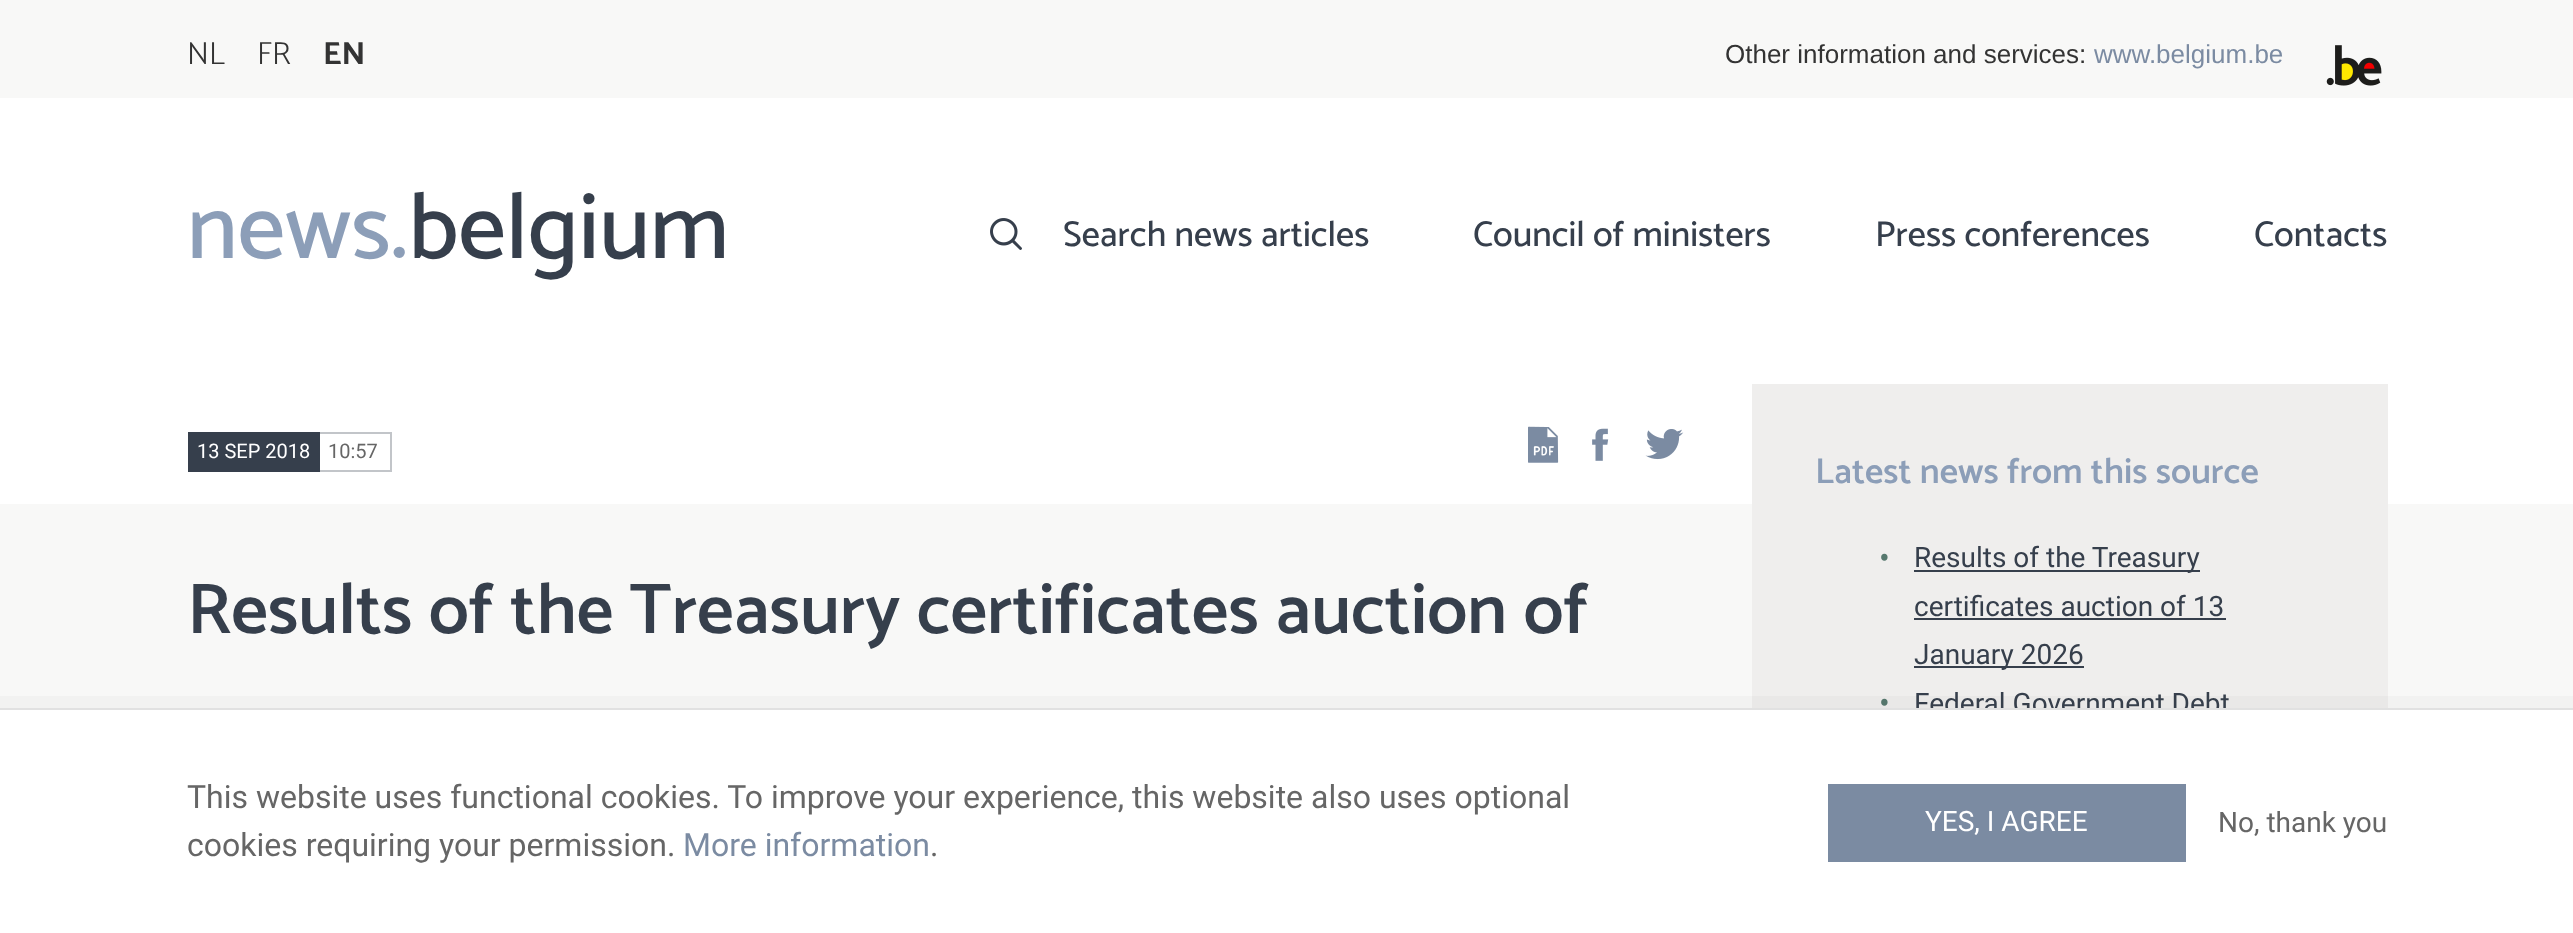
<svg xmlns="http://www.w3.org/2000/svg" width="2573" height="933">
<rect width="100%" height="100%" fill="#f8f8f7"/>
<text x="187" y="64" style="font-family:Catamaran;font-size:32px;font-weight:300;fill:#333">NL</text>
<text x="257" y="64" style="font-family:Catamaran;font-size:32px;font-weight:300;fill:#333">FR</text>
<text x="323" y="64" style="font-family:Catamaran;font-size:32px;font-weight:bold;fill:#333">EN</text>
<text x="1725" y="63" style="font-family:Liberation Sans;font-size:26px;fill:#333">Other information and services:</text>
<text x="2094" y="63" style="font-family:Liberation Sans;font-size:26px;fill:#7b8ba2">www.belgium.be</text>
<image x="2326" y="45" width="56" height="41" href="media/1.png"/>
<rect y="98" width="2573" height="406" fill="#fff"/>
<text x="187" y="258" style="font-family:Catamaran;font-size:94px;font-weight:500;fill:#8c9eb8">news.</text>
<text x="408" y="258" style="font-family:Catamaran;font-size:94px;font-weight:500;fill:#363f4c">belgium</text>
<image x="990" y="218" width="32" height="32" href="media/2.png"/>
<text x="1063" y="246" style="font-family:Catamaran;font-size:36px;font-weight:500;fill:#363f4c">Search news articles</text>
<text x="1473" y="246" style="font-family:Catamaran;font-size:36px;font-weight:500;fill:#363f4c">Council of ministers</text>
<text x="1875" y="246" style="font-family:Catamaran;font-size:36px;font-weight:500;fill:#363f4c">Press conferences</text>
<text x="2254" y="246" style="font-family:Catamaran;font-size:36px;font-weight:500;fill:#363f4c">Contacts</text>
<rect x="188" y="432" width="132" height="40" fill="#363f4c"/>
<text x="197" y="458" style="font-family:Roboto;font-size:20px;fill:#fff">13 SEP 2018</text>
<rect x="320" y="432" width="72" height="2" fill="#c2c5c9"/>
<rect x="390" y="432" width="2" height="40" fill="#c2c5c9"/>
<rect x="320" y="470" width="72" height="2" fill="#c2c5c9"/>
<text x="328" y="458" style="font-family:Roboto;font-size:20px;fill:#666">10:57</text>
<image x="1528" y="426" width="31" height="37" href="media/3.png"/>
<image x="1592" y="428" width="17" height="33" href="media/4.png"/>
<image x="1645" y="429" width="39" height="31" href="media/5.png"/>
<text x="187" y="633" style="font-family:Catamaran;font-size:72px;font-weight:600;fill:#363f4c">Results of the Treasury certificates auction of</text>
<rect x="1752" y="384" width="636" height="324" fill="#efeeed"/>
<text x="1815" y="483" style="font-family:Catamaran;font-size:36px;font-weight:600;fill:#8c9eb8">Latest news from this source</text>
<text x="1879" y="569" style="font-family:Roboto;font-size:32px;fill:#56786e">•</text>
<rect x="1914" y="570" width="286" height="2" fill="#363f4c"/>
<text x="1914" y="567" style="font-family:Roboto;font-size:28px;fill:#363f4c">Results of the Treasury</text>
<text x="1914" y="616" style="font-family:Roboto;font-size:28px;fill:#363f4c">certificates auction of 13</text>
<rect x="1914" y="618" width="312" height="2" fill="#363f4c"/>
<rect x="1914" y="666" width="170" height="2" fill="#363f4c"/>
<text x="1914" y="664" style="font-family:Roboto;font-size:28px;fill:#363f4c">January 2026</text>
<text x="1879" y="714" style="font-family:Roboto;font-size:32px;fill:#56786e">•</text>
<text x="1914" y="713" style="font-family:Roboto;font-size:28px;fill:#363f4c">Federal Government Debt</text>
<path d="M-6 696v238h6v-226h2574v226h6v-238z" fill="#33333308"/>
<rect y="710" width="2573" height="223" fill="#fff"/>
<rect y="708" width="2573" height="2" fill="#e1e1e1"/>
<text x="187" y="808" style="font-family:Roboto;font-size:32px;fill:#666">This website uses functional cookies. To improve your experience, this website also uses optional</text>
<text x="187" y="856" style="font-family:Roboto;font-size:32px;fill:#666">cookies requiring your permission.</text>
<text x="683" y="856" style="font-family:Roboto;font-size:32px;fill:#7b8ba2">More information</text>
<text x="930" y="856" style="font-family:Roboto;font-size:32px;fill:#666">.</text>
<rect x="1828" y="784" width="358" height="78" fill="#7b8ba2"/>
<text x="1925" y="831" style="font-family:Roboto;font-size:28px;fill:#fff">YES, I AGREE</text>
<text x="2218" y="832" style="font-family:Roboto;font-size:28px;fill:#666">No, thank you</text>
</svg>
